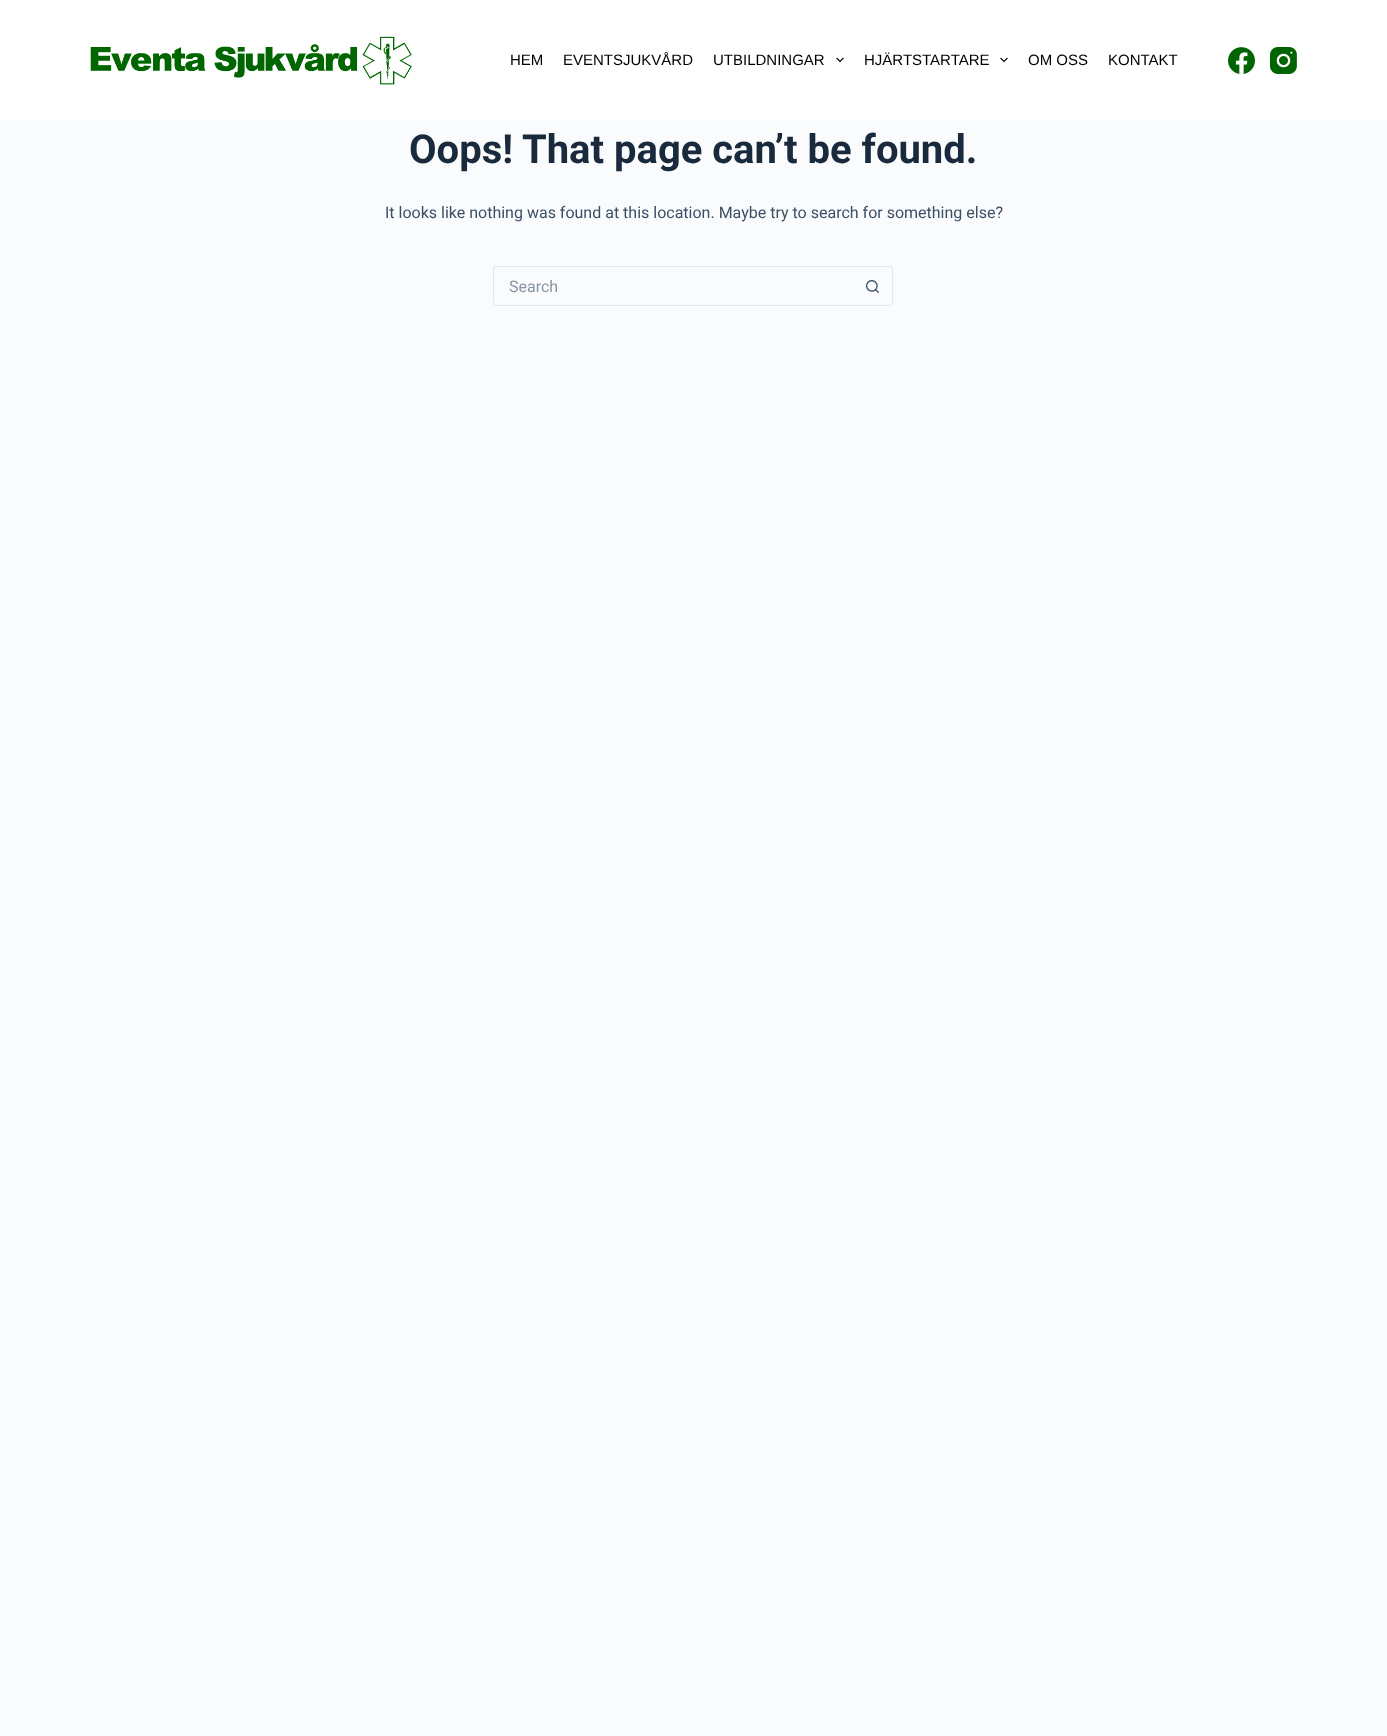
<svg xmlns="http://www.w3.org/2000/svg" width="1387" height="1736">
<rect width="100%" height="100%" fill="#fafbfc"/>
<rect width="1387" height="120" fill="#fff"/>
<image x="90" y="36" width="322" height="49" href="media/1.png"/>
<text x="510" y="65" style="font-family:Liberation Sans;font-size:15px;fill:#000">HEM</text>
<text x="563" y="65" style="font-family:Liberation Sans;font-size:15px;fill:#000">EVENTSJUKVÅRD</text>
<text x="713" y="65" style="font-family:Liberation Sans;font-size:15px;fill:#000">UTBILDNINGAR</text>
<image x="836" y="57" width="8" height="6" href="media/2.png"/>
<text x="864" y="65" style="font-family:Liberation Sans;font-size:15px;fill:#000">HJÄRTSTARTARE</text>
<image x="1000" y="57" width="8" height="6" href="media/2.png"/>
<text x="1028" y="65" style="font-family:Liberation Sans;font-size:15px;fill:#000">OM OSS</text>
<text x="1108" y="65" style="font-family:Liberation Sans;font-size:15px;fill:#000">KONTAKT</text>
<image x="1228" y="47" width="27" height="27" href="media/3.png"/>
<image x="1270" y="47" width="27" height="27" href="media/4.png"/>
<text x="409" y="163" style="font-family:Roboto;font-size:40px;font-weight:bold;fill:#192a3d">Oops! That page can’t be found.</text>
<text x="385" y="218" style="font-family:Roboto;font-size:16px;fill:#3a4f66">It looks like nothing was found at this location. Maybe try to search for something else?</text>
<path d="M496 266h357v40h-357c-2 0-3-1-3-3v-34c0-2 1-3 3-3zm0 1h357v38h-358c-2-2-1-7-1-8v-28l1-2z" fill="#e1e8ed" fill-rule="evenodd"/>
<text x="509" y="292" style="font-family:Roboto;font-size:16px;fill:#8794a2">Search</text>
<path d="M853 266h37c2 0 3 1 3 3v34c0 2-1 3-3 3h-37zm0 1h37c1 0 2 1 2 2v34c0 1-1 2-2 2h-37z" fill="#e1e8ed" fill-rule="evenodd"/>
<image x="866" y="280" width="13" height="13" href="media/5.png"/>
</svg>
